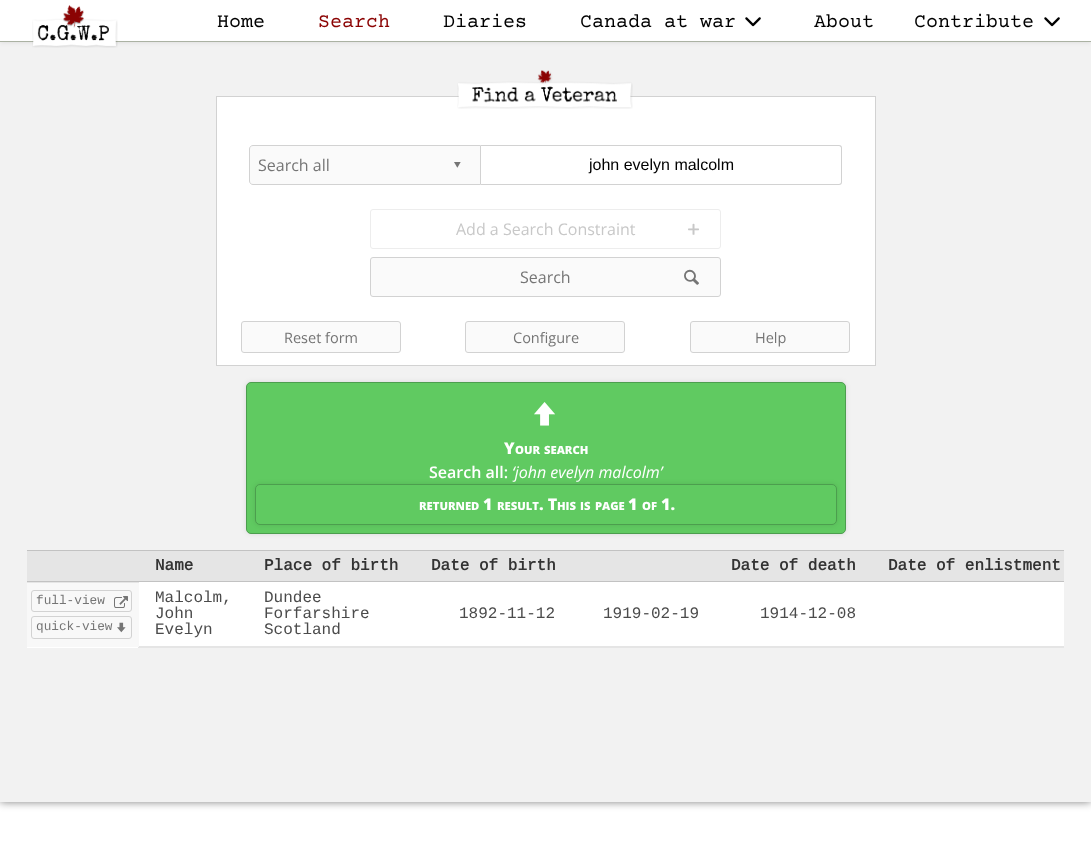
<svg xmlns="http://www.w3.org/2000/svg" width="1091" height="866">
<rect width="100%" height="100%" fill="#fff"/>
<rect width="1091" height="802" fill="#00000080" filter="blur(4.5px)"/>
<rect y="42" width="1091" height="760" fill="#f2f2f2"/>
<rect width="1091" height="42" fill="#0000001a" filter="blur(2.5px)"/>
<rect width="1091" height="41" fill="#fff"/>
<rect y="41" width="1091" height="1" fill="#abb2a3"/>
<image x="32" y="5" width="86" height="43" href="media/1.png"/>
<text x="217" y="27" style="font-family:Courier Prime;font-size:20px;fill:#000">Home</text>
<text x="318" y="27" style="font-family:Courier Prime;font-size:20px;fill:#8b0303">Search</text>
<text x="443" y="27" style="font-family:Courier Prime;font-size:20px;fill:#000">Diaries</text>
<text x="580" y="27" style="font-family:Courier Prime;font-size:20px;fill:#000">Canada at war</text>
<image x="745" y="17" width="16" height="10" href="media/2.png"/>
<text x="814" y="27" style="font-family:Courier Prime;font-size:20px;fill:#000">About</text>
<text x="914" y="27" style="font-family:Courier Prime;font-size:20px;fill:#000">Contribute</text>
<image x="1044" y="17" width="16" height="10" href="media/2.png"/>
<rect x="216.5" y="96.5" width="659" height="269" fill="#fff" stroke="#d2d2d2"/>
<image x="457" y="70" width="176" height="39" href="media/3.png"/>
<path d="M253 145.5h227.5v39h-227.5c-2 0-3.5-1.5-3.5-3.5v-32c0-2 1.5-3.5 3.5-3.5z" fill="#fafafa" stroke="#d2d2d2"/>
<text x="258" y="171" style="font-family:Open Sans;font-size:16px;fill:#757575">Search all</text>
<text x="454" y="170" style="font-family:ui;font-size:14.5px;fill:#757575">⏷</text>
<path d="M481 145h358c2 0 3 1 3 3v34c0 2-1 3-3 3h-358zm0 1h358c1 0 2 1 2 2v34c0 1-1 2-2 2h-358z" fill="#d2d2d2" fill-rule="evenodd"/>
<text x="589" y="170" style="font-family:Liberation Sans;font-size:16px;fill:#000">john evelyn malcolm</text>
<rect x="370.5" y="209.5" width="350" height="39" rx="2.5" fill="none" stroke="#ededed"/>
<text x="456" y="235" style="font-family:Open Sans;font-size:16px;fill:#c8c8c8">Add a Search Constraint</text>
<text x="688" y="236" style="font-family:ui;font-size:19px;fill:#c8c8c8">+</text>
<rect x="370.5" y="257.5" width="350" height="39" rx="2.5" fill="#fafafa" stroke="#d2d2d2"/>
<text x="520" y="283" style="font-family:Open Sans;font-size:16px;fill:#757575">Search</text>
<text x="684" y="284" style="font-family:ui;font-size:19px;fill:#757575">🔍</text>
<rect x="241.5" y="321.5" width="159" height="31" rx="2.5" fill="#fafafa" stroke="#d2d2d2"/>
<text x="284" y="343" style="font-family:Open Sans;font-size:14.5px;fill:#757575">Reset form</text>
<rect x="465.5" y="321.5" width="159" height="31" rx="2.5" fill="#fafafa" stroke="#d2d2d2"/>
<text x="513" y="343" style="font-family:Open Sans;font-size:14.5px;fill:#757575">Configure</text>
<rect x="690.5" y="321.5" width="159" height="31" rx="2.5" fill="#fafafa" stroke="#d2d2d2"/>
<text x="755" y="343" style="font-family:Open Sans;font-size:14.5px;fill:#757575">Help</text>
<rect x="246" y="382" width="600" height="152" rx="5" fill="#0000001a" filter="blur(2.5px)"/>
<rect x="246.5" y="382.5" width="599" height="151" rx="4.5" fill="#60ca61" stroke="#4c9e4e"/>
<text x="534" y="425" style="font-family:ui;font-size:32px;fill:#fff">🡅</text>
<text x="504" y="454" style="font-family:Open Sans;font-size:16px;font-weight:800;fill:#fff">Y</text>
<text x="515" y="454" style="font-family:Open Sans;font-size:11.25px;font-weight:800;fill:#fff">OUR</text>
<text x="544" y="454" style="font-family:Open Sans;font-size:11.25px;font-weight:800;fill:#fff">SEARCH</text>
<rect x="255" y="484" width="582" height="41" rx="5" fill="#0000001a" filter="blur(2.5px)"/>
<text x="429" y="478" style="font-family:Open Sans;font-size:16px;font-weight:600;fill:#fff">Search all:</text>
<text x="512" y="478" style="font-family:Open Sans;font-size:16px;font-style:italic;fill:#fff">‘john evelyn malcolm’</text>
<rect x="255.5" y="484.5" width="581" height="40" rx="4.5" fill="#60ca61" stroke="#4c9e4e"/>
<text x="419" y="510" style="font-family:Open Sans;font-size:11.25px;font-weight:800;fill:#fff">RETURNED</text>
<text x="483" y="510" style="font-family:Open Sans;font-size:16px;font-weight:800;fill:#fff">1</text>
<text x="497" y="510" style="font-family:Open Sans;font-size:11.25px;font-weight:800;fill:#fff">RESULT</text>
<text x="539" y="510" style="font-family:Open Sans;font-size:16px;font-weight:800;fill:#fff">. T</text>
<text x="557" y="510" style="font-family:Open Sans;font-size:11.25px;font-weight:800;fill:#fff">HIS</text>
<text x="580" y="510" style="font-family:Open Sans;font-size:11.25px;font-weight:800;fill:#fff">IS</text>
<text x="595" y="510" style="font-family:Open Sans;font-size:11.25px;font-weight:800;fill:#fff">PAGE</text>
<text x="628" y="510" style="font-family:Open Sans;font-size:16px;font-weight:800;fill:#fff">1</text>
<text x="642" y="510" style="font-family:Open Sans;font-size:11.25px;font-weight:800;fill:#fff">OF</text>
<text x="661" y="510" style="font-family:Open Sans;font-size:16px;font-weight:800;fill:#fff">1.</text>
<rect x="27" y="582" width="1037" height="66" fill="#fff"/>
<rect x="27" y="551" width="1037" height="30" fill="#e5e5e5"/>
<rect x="27" y="550" width="1037" height="1" fill="#c2c2c2"/>
<text x="155" y="570" style="font-family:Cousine;font-size:16px;font-weight:bold;fill:#333">Name</text>
<rect x="27" y="581" width="1037" height="1" fill="#c2c2c2"/>
<text x="264" y="570" style="font-family:Cousine;font-size:16px;font-weight:bold;fill:#333">Place of birth</text>
<text x="431" y="570" style="font-family:Cousine;font-size:16px;font-weight:bold;fill:#333">Date of birth</text>
<text x="731" y="570" style="font-family:Cousine;font-size:16px;font-weight:bold;fill:#333">Date of death</text>
<text x="888" y="570" style="font-family:Cousine;font-size:16px;font-weight:bold;fill:#333">Date of enlistment</text>
<rect x="138" y="646" width="926" height="2" fill="#e5e5e5"/>
<rect x="27" y="583" width="112" height="64" fill="#f8f8f8"/>
<rect x="27" y="582" width="112" height="1" fill="#e5e5e5"/>
<rect x="31.5" y="590.5" width="100" height="21" rx="2.5" fill="none" stroke="#d2d2d2"/>
<text x="36" y="604" style="font-family:Cousine;font-size:12.75px;fill:#757575">full-view</text>
<text x="114" y="608" style="font-family:ui;font-size:14px;fill:#757575">↗</text>
<rect x="31.5" y="616.5" width="100" height="22" rx="2.5" fill="none" stroke="#d2d2d2"/>
<text x="36" y="630" style="font-family:Cousine;font-size:12.75px;fill:#757575">quick-view</text>
<text x="117" y="632" style="font-family:ui;font-size:13px;fill:#757575">🡇</text>
<text x="155" y="602" style="font-family:Cousine;font-size:16px;fill:#4b4b4b">Malcolm,</text>
<text x="155" y="618" style="font-family:Cousine;font-size:16px;fill:#4b4b4b">John</text>
<text x="155" y="634" style="font-family:Cousine;font-size:16px;fill:#4b4b4b">Evelyn</text>
<text x="264" y="602" style="font-family:Cousine;font-size:16px;fill:#4b4b4b">Dundee</text>
<text x="264" y="618" style="font-family:Cousine;font-size:16px;fill:#4b4b4b">Forfarshire</text>
<text x="264" y="634" style="font-family:Cousine;font-size:16px;fill:#4b4b4b">Scotland</text>
<text x="459" y="618" style="font-family:Cousine;font-size:16px;fill:#4b4b4b">1892-11-12</text>
<text x="603" y="618" style="font-family:Cousine;font-size:16px;fill:#4b4b4b">1919-02-19</text>
<text x="760" y="618" style="font-family:Cousine;font-size:16px;fill:#4b4b4b">1914-12-08</text>
</svg>
